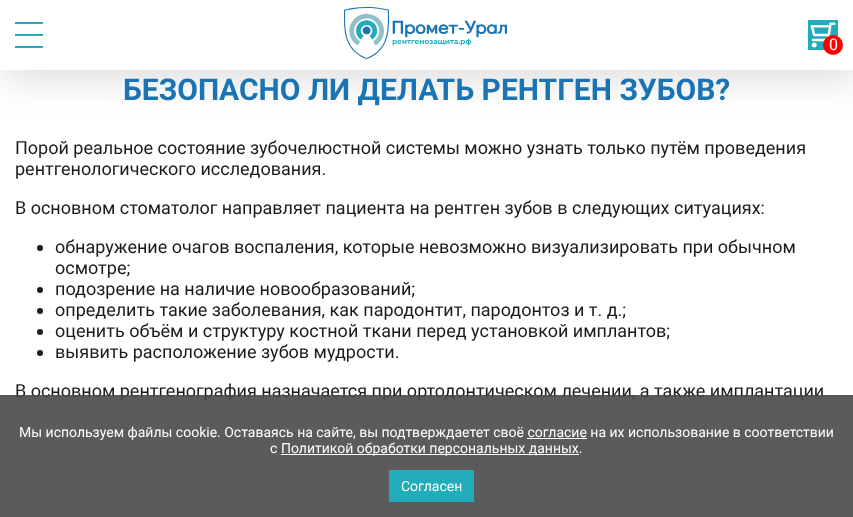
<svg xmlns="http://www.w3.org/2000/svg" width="853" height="517">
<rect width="100%" height="100%" fill="#fff"/>
<rect x="4" y="7" width="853" height="70" fill="#00000026" filter="blur(20px)"/>
<rect width="853" height="70" fill="#fff"/>
<rect x="15" y="22" width="28" height="2" fill="#20acb9"/>
<rect x="15" y="34" width="28" height="2" fill="#20acb9"/>
<rect x="15" y="46" width="28" height="2" fill="#20acb9"/>
<image x="344" y="7" width="163" height="52" href="media/1.png"/>
<rect x="808" y="20" width="30" height="30" fill="#20acb9"/>
<image x="810" y="22" width="26" height="26" href="media/2.png"/>
<circle cx="833" cy="45" r="10" fill="#f00"/>
<text x="829" y="50" style="font-family:Roboto;font-size:16px;fill:#fff">0</text>
<text x="123" y="100" style="font-family:Roboto;font-size:30px;font-weight:bold;fill:#1a74b3">БЕЗОПАСНО ЛИ ДЕЛАТЬ РЕНТГЕН ЗУБОВ?</text>
<text x="15" y="154" style="font-family:Roboto;font-size:18px;fill:#1b1b1b">Порой реальное состояние зубочелюстной системы можно узнать только путём проведения</text>
<text x="15" y="175" style="font-family:Roboto;font-size:18px;fill:#1b1b1b">рентгенологического исследования.</text>
<text x="15" y="214" style="font-family:Roboto;font-size:18px;fill:#1b1b1b">В основном стоматолог направляет пациента на рентген зубов в следующих ситуациях:</text>
<circle cx="40" cy="248" r="3" fill="#1b1b1b"/>
<text x="55" y="253" style="font-family:Roboto;font-size:18px;fill:#1b1b1b">обнаружение очагов воспаления, которые невозможно визуализировать при обычном</text>
<text x="55" y="274" style="font-family:Roboto;font-size:18px;fill:#1b1b1b">осмотре;</text>
<circle cx="40" cy="290" r="3" fill="#1b1b1b"/>
<text x="55" y="295" style="font-family:Roboto;font-size:18px;fill:#1b1b1b">подозрение на наличие новообразований;</text>
<circle cx="40" cy="311" r="3" fill="#1b1b1b"/>
<text x="55" y="316" style="font-family:Roboto;font-size:18px;fill:#1b1b1b">определить такие заболевания, как пародонтит, пародонтоз и т. д.;</text>
<circle cx="40" cy="332" r="3" fill="#1b1b1b"/>
<text x="55" y="337" style="font-family:Roboto;font-size:18px;fill:#1b1b1b">оценить объём и структуру костной ткани перед установкой имплантов;</text>
<circle cx="40" cy="353" r="3" fill="#1b1b1b"/>
<text x="55" y="358" style="font-family:Roboto;font-size:18px;fill:#1b1b1b">выявить расположение зубов мудрости.</text>
<text x="15" y="397" style="font-family:Roboto;font-size:18px;fill:#1b1b1b">В основном рентгенография назначается при ортодонтическом лечении, а также имплантации</text>
<rect y="395" width="853" height="122" fill="#494949e6"/>
<text x="19" y="437" style="font-family:Roboto;font-size:14px;fill:#fff">Мы используем файлы cookie. Оставаясь на сайте, вы подтверждаетет своё согласие на их использование в соответствии</text>
<rect x="527" y="438" width="60" height="1" fill="#fff"/>
<text x="270" y="453" style="font-family:Roboto;font-size:14px;fill:#fff">с</text>
<rect x="281" y="454" width="298" height="1" fill="#fff"/>
<text x="281" y="453" style="font-family:Roboto;font-size:14px;fill:#fff">Политикой обработки персональных данных.</text>
<rect x="389" y="470" width="85" height="32" fill="#20acb9"/>
<text x="401" y="491" style="font-family:Roboto;font-size:14px;fill:#fff">Согласен</text>
</svg>
